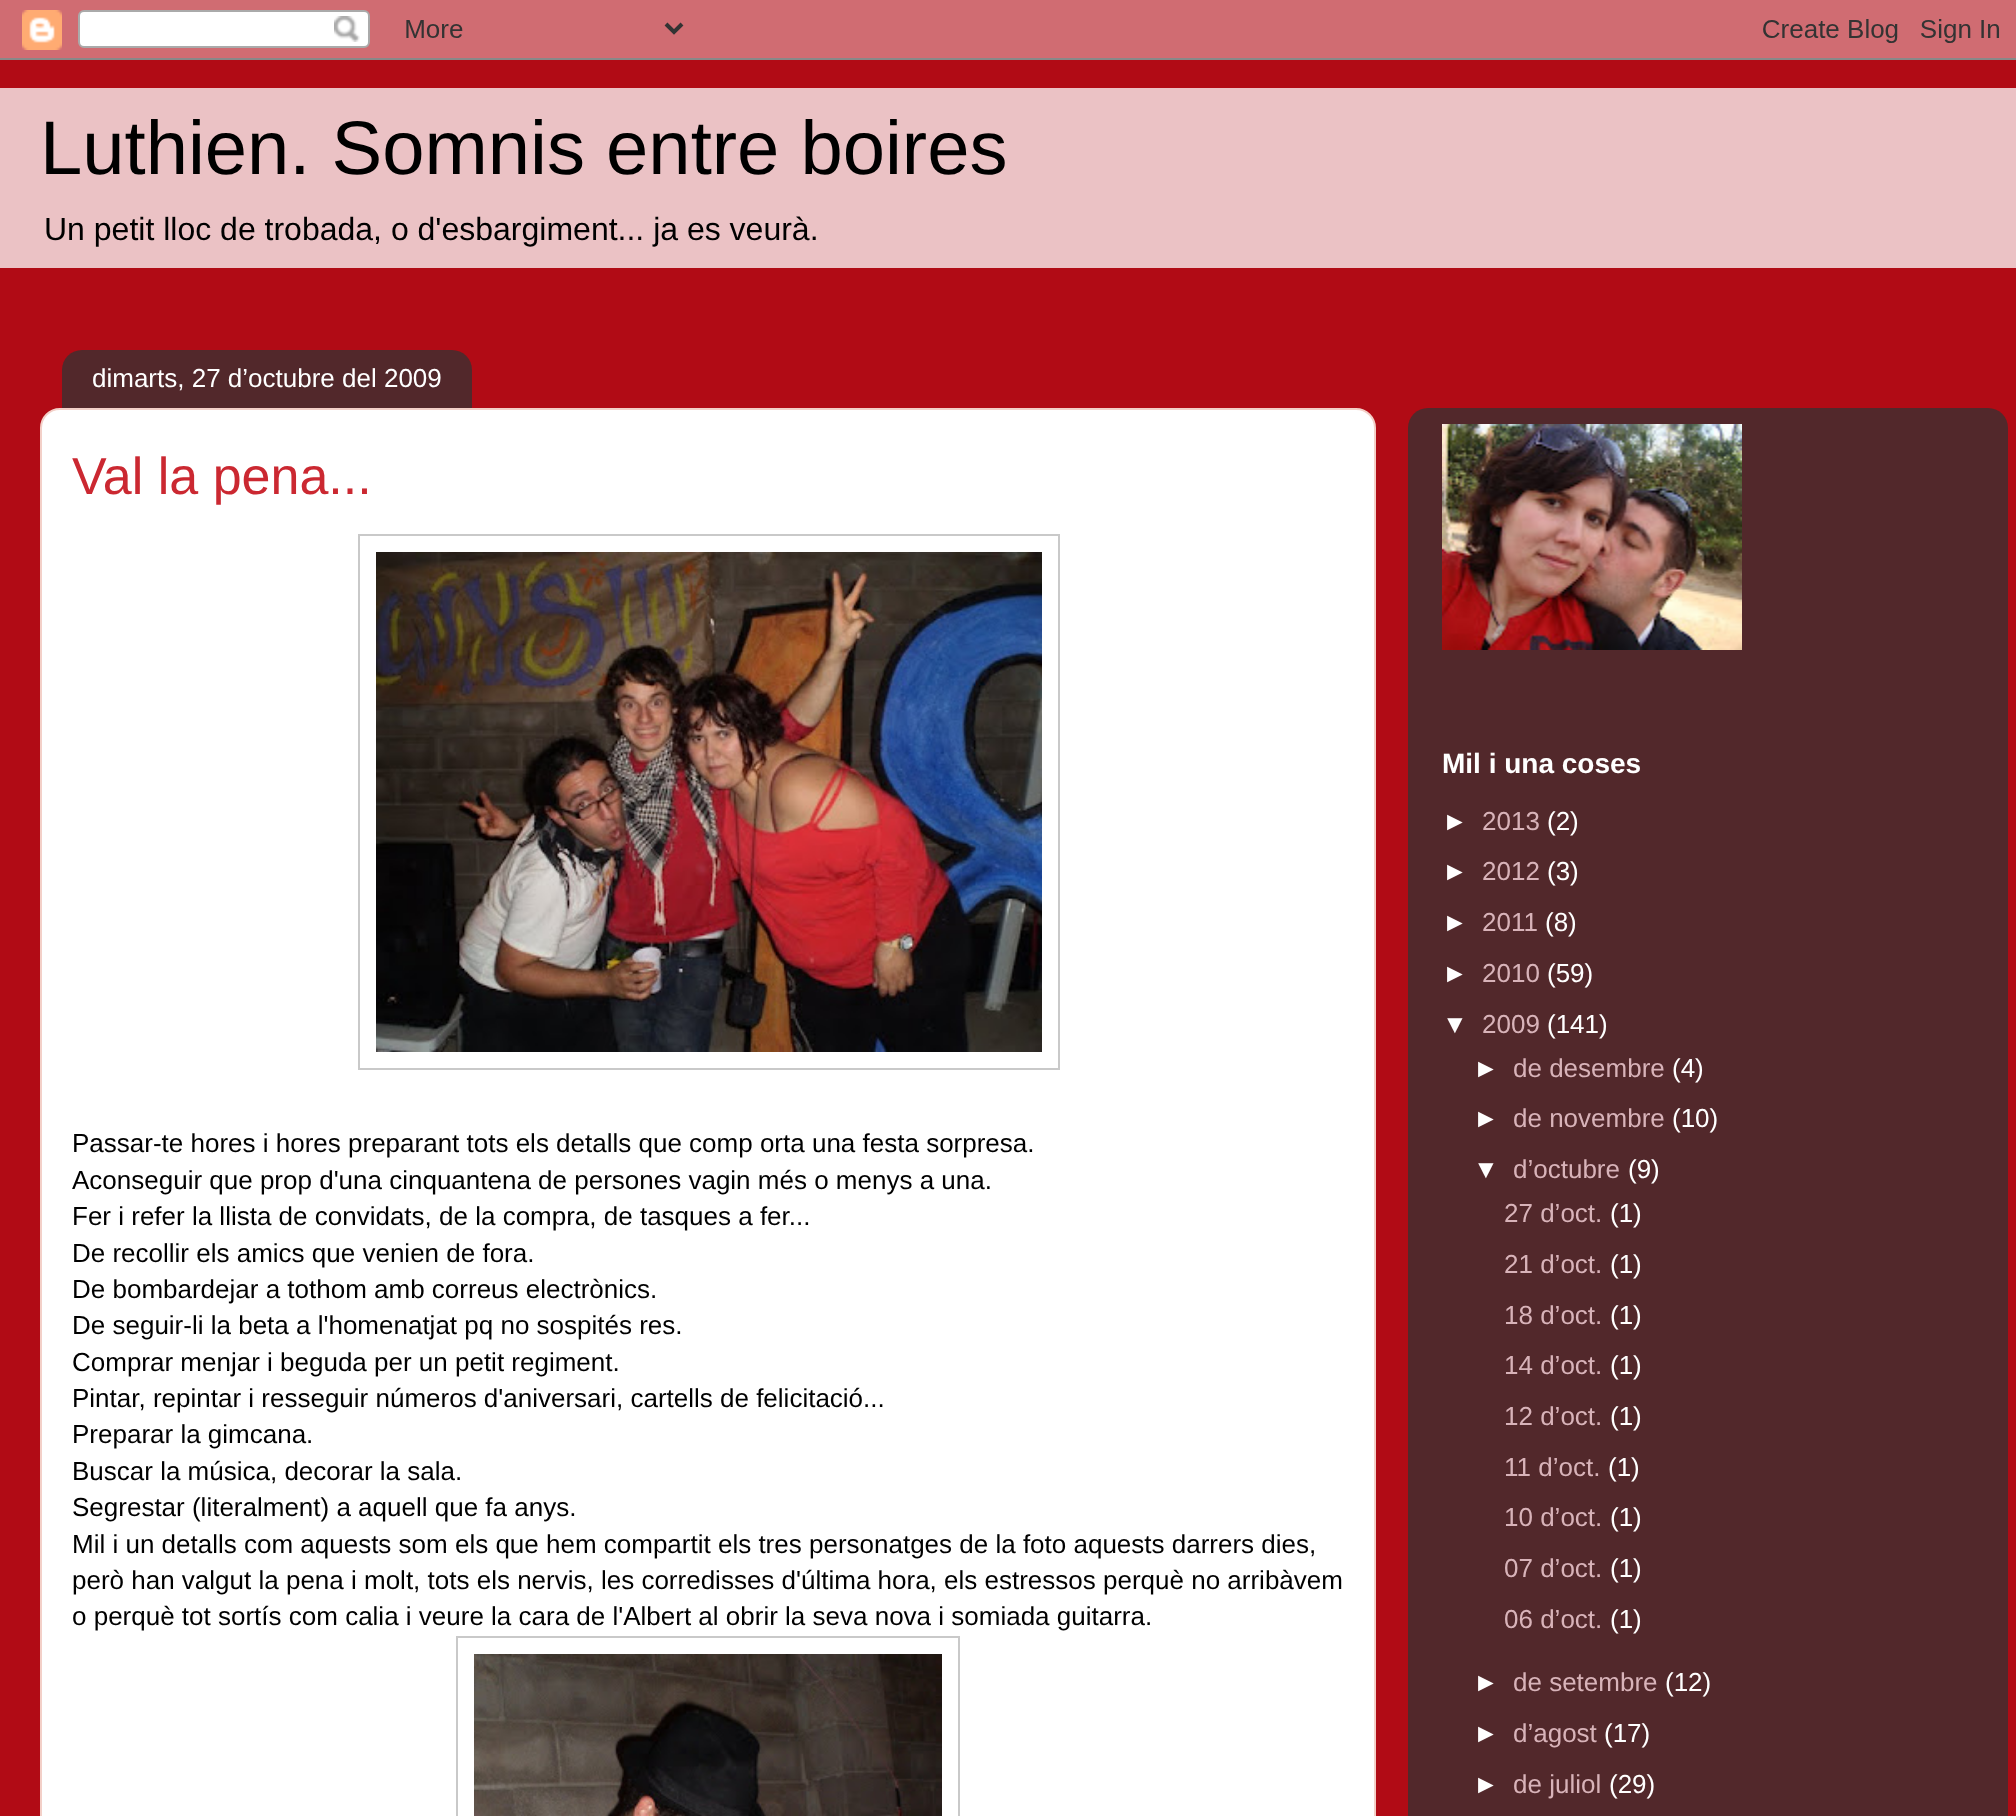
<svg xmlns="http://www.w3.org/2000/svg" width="2016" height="1816">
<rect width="100%" height="100%" fill="#b10b15"/>
<image x="0" y="0" width="2016" height="60" href="media/1.png"/>
<rect y="88" width="2016" height="180" fill="#ebc2c5"/>
<text x="40" y="174" style="font-family:Liberation Sans;font-size:76px;fill:#000">Luthien. Somnis entre boires</text>
<text x="44" y="240" style="font-family:Liberation Sans;font-size:32px;fill:#000">Un petit lloc de trobada, o d'esbargiment... ja es veurà.</text>
<path d="M60 409h1296c10.5 0 19 8.5 19 19v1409h-1334v-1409c0-10.5 8.5-19 19-19z" fill="#fff" stroke="#f3d0c8" stroke-width="2"/>
<image x="62" y="350" width="410" height="58" href="media/2.png"/>
<text x="92" y="387" style="font-family:Liberation Sans;font-size:26px;fill:#fff">dimarts, 27 d’octubre del 2009</text>
<text x="72" y="494" style="font-family:Liberation Sans;font-size:52px;fill:#cb2831">Val la pena...</text>
<rect x="359" y="535" width="700" height="534" fill="none" stroke="#c9c9c9" stroke-width="2"/>
<image x="376" y="552" width="666" height="500" href="media/3.png"/>
<text x="72" y="1152" style="font-family:Liberation Sans;font-size:26px;fill:#000">Passar-te hores i hores preparant tots els detalls que comp orta una festa sorpresa.</text>
<text x="72" y="1189" style="font-family:Liberation Sans;font-size:26px;fill:#000">Aconseguir que prop d'una cinquantena de persones vagin més o menys a una.</text>
<text x="72" y="1225" style="font-family:Liberation Sans;font-size:26px;fill:#000">Fer i refer la llista de convidats, de la compra, de tasques a fer...</text>
<text x="72" y="1262" style="font-family:Liberation Sans;font-size:26px;fill:#000">De recollir els amics que venien de fora.</text>
<text x="72" y="1298" style="font-family:Liberation Sans;font-size:26px;fill:#000">De bombardejar a tothom amb correus electrònics.</text>
<text x="72" y="1334" style="font-family:Liberation Sans;font-size:26px;fill:#000">De seguir-li la beta a l'homenatjat pq no sospités res.</text>
<text x="72" y="1371" style="font-family:Liberation Sans;font-size:26px;fill:#000">Comprar menjar i beguda per un petit regiment.</text>
<text x="72" y="1407" style="font-family:Liberation Sans;font-size:26px;fill:#000">Pintar, repintar i resseguir números d'aniversari, cartells de felicitació...</text>
<text x="72" y="1443" style="font-family:Liberation Sans;font-size:26px;fill:#000">Preparar la gimcana.</text>
<text x="72" y="1480" style="font-family:Liberation Sans;font-size:26px;fill:#000">Buscar la música, decorar la sala.</text>
<text x="72" y="1516" style="font-family:Liberation Sans;font-size:26px;fill:#000">Segrestar (literalment) a aquell que fa anys.</text>
<text x="72" y="1553" style="font-family:Liberation Sans;font-size:26px;fill:#000">Mil i un detalls com aquests som els que hem compartit els tres personatges de la foto aquests darrers dies,</text>
<text x="72" y="1589" style="font-family:Liberation Sans;font-size:26px;fill:#000">però han valgut la pena i molt, tots els nervis, les corredisses d'última hora, els estressos perquè no arribàvem</text>
<text x="72" y="1625" style="font-family:Liberation Sans;font-size:26px;fill:#000">o perquè tot sortís com calia i veure la cara de l'Albert al obrir la seva nova i somiada guitarra.</text>
<rect x="457" y="1637" width="502" height="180" fill="none" stroke="#c9c9c9" stroke-width="2"/>
<image x="474" y="1654" width="468" height="162" href="media/4.png"/>
<image x="1408" y="408" width="600" height="1408" href="media/5.png"/>
<image x="1442" y="424" width="300" height="226" href="media/6.png"/>
<text x="1442" y="773" style="font-family:Liberation Sans;font-size:28px;font-weight:bold;fill:#fff">Mil i una coses</text>
<text x="1442" y="830" style="font-family:Liberation Sans;font-size:26px;fill:#fff">►</text>
<text x="1482" y="830" style="font-family:Liberation Sans;font-size:26px;fill:#d8b3b9">2013</text>
<text x="1547" y="830" style="font-family:Liberation Sans;font-size:26px;fill:#fff">(2)</text>
<text x="1442" y="880" style="font-family:Liberation Sans;font-size:26px;fill:#fff">►</text>
<text x="1482" y="880" style="font-family:Liberation Sans;font-size:26px;fill:#d8b3b9">2012</text>
<text x="1547" y="880" style="font-family:Liberation Sans;font-size:26px;fill:#fff">(3)</text>
<text x="1442" y="931" style="font-family:Liberation Sans;font-size:26px;fill:#fff">►</text>
<text x="1482" y="931" style="font-family:Liberation Sans;font-size:26px;fill:#d8b3b9">2011</text>
<text x="1545" y="931" style="font-family:Liberation Sans;font-size:26px;fill:#fff">(8)</text>
<text x="1442" y="982" style="font-family:Liberation Sans;font-size:26px;fill:#fff">►</text>
<text x="1482" y="982" style="font-family:Liberation Sans;font-size:26px;fill:#d8b3b9">2010</text>
<text x="1547" y="982" style="font-family:Liberation Sans;font-size:26px;fill:#fff">(59)</text>
<text x="1442" y="1033" style="font-family:Liberation Sans;font-size:26px;fill:#fff">▼</text>
<text x="1482" y="1033" style="font-family:Liberation Sans;font-size:26px;fill:#d8b3b9">2009</text>
<text x="1547" y="1033" style="font-family:Liberation Sans;font-size:26px;fill:#fff">(141)</text>
<text x="1473" y="1077" style="font-family:Liberation Sans;font-size:26px;fill:#fff">►</text>
<text x="1513" y="1077" style="font-family:Liberation Sans;font-size:26px;fill:#d8b3b9">de desembre</text>
<text x="1672" y="1077" style="font-family:Liberation Sans;font-size:26px;fill:#fff">(4)</text>
<text x="1473" y="1127" style="font-family:Liberation Sans;font-size:26px;fill:#fff">►</text>
<text x="1513" y="1127" style="font-family:Liberation Sans;font-size:26px;fill:#d8b3b9">de novembre</text>
<text x="1672" y="1127" style="font-family:Liberation Sans;font-size:26px;fill:#fff">(10)</text>
<text x="1473" y="1178" style="font-family:Liberation Sans;font-size:26px;fill:#fff">▼</text>
<text x="1513" y="1178" style="font-family:Liberation Sans;font-size:26px;fill:#d8b3b9">d’octubre</text>
<text x="1628" y="1178" style="font-family:Liberation Sans;font-size:26px;fill:#fff">(9)</text>
<text x="1504" y="1222" style="font-family:Liberation Sans;font-size:26px;fill:#d8b3b9">27 d’oct.</text>
<text x="1610" y="1222" style="font-family:Liberation Sans;font-size:26px;fill:#fff">(1)</text>
<text x="1504" y="1273" style="font-family:Liberation Sans;font-size:26px;fill:#d8b3b9">21 d’oct.</text>
<text x="1610" y="1273" style="font-family:Liberation Sans;font-size:26px;fill:#fff">(1)</text>
<text x="1504" y="1324" style="font-family:Liberation Sans;font-size:26px;fill:#d8b3b9">18 d’oct.</text>
<text x="1610" y="1324" style="font-family:Liberation Sans;font-size:26px;fill:#fff">(1)</text>
<text x="1504" y="1374" style="font-family:Liberation Sans;font-size:26px;fill:#d8b3b9">14 d’oct.</text>
<text x="1610" y="1374" style="font-family:Liberation Sans;font-size:26px;fill:#fff">(1)</text>
<text x="1504" y="1425" style="font-family:Liberation Sans;font-size:26px;fill:#d8b3b9">12 d’oct.</text>
<text x="1610" y="1425" style="font-family:Liberation Sans;font-size:26px;fill:#fff">(1)</text>
<text x="1504" y="1476" style="font-family:Liberation Sans;font-size:26px;fill:#d8b3b9">11 d’oct.</text>
<text x="1608" y="1476" style="font-family:Liberation Sans;font-size:26px;fill:#fff">(1)</text>
<text x="1504" y="1526" style="font-family:Liberation Sans;font-size:26px;fill:#d8b3b9">10 d’oct.</text>
<text x="1610" y="1526" style="font-family:Liberation Sans;font-size:26px;fill:#fff">(1)</text>
<text x="1504" y="1577" style="font-family:Liberation Sans;font-size:26px;fill:#d8b3b9">07 d’oct.</text>
<text x="1610" y="1577" style="font-family:Liberation Sans;font-size:26px;fill:#fff">(1)</text>
<text x="1504" y="1628" style="font-family:Liberation Sans;font-size:26px;fill:#d8b3b9">06 d’oct.</text>
<text x="1610" y="1628" style="font-family:Liberation Sans;font-size:26px;fill:#fff">(1)</text>
<text x="1473" y="1691" style="font-family:Liberation Sans;font-size:26px;fill:#fff">►</text>
<text x="1513" y="1691" style="font-family:Liberation Sans;font-size:26px;fill:#d8b3b9">de setembre</text>
<text x="1665" y="1691" style="font-family:Liberation Sans;font-size:26px;fill:#fff">(12)</text>
<text x="1473" y="1742" style="font-family:Liberation Sans;font-size:26px;fill:#fff">►</text>
<text x="1513" y="1742" style="font-family:Liberation Sans;font-size:26px;fill:#d8b3b9">d’agost</text>
<text x="1604" y="1742" style="font-family:Liberation Sans;font-size:26px;fill:#fff">(17)</text>
<text x="1473" y="1793" style="font-family:Liberation Sans;font-size:26px;fill:#fff">►</text>
<text x="1513" y="1793" style="font-family:Liberation Sans;font-size:26px;fill:#d8b3b9">de juliol</text>
<text x="1609" y="1793" style="font-family:Liberation Sans;font-size:26px;fill:#fff">(29)</text>
</svg>
